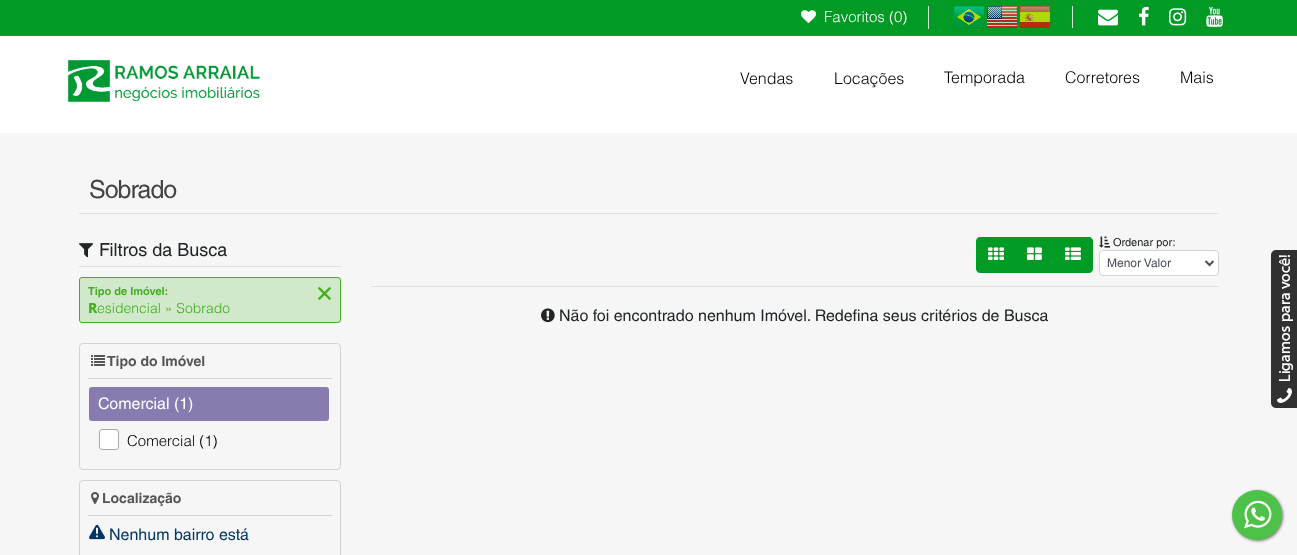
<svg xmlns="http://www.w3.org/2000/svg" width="1297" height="555">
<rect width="100%" height="100%" fill="#f6f6f6"/>
<rect width="1297" height="35" fill="#009a24"/>
<rect y="35" width="1297" height="1" fill="#10a032"/>
<rect x="928" y="6" width="1" height="23" fill="#ccebd3"/>
<image x="801" y="10" width="15" height="13" href="media/1.png"/>
<text x="824" y="22" style="font-family:Helvetica;font-size:15px;font-weight:300;fill:#fff">Favoritos (0)</text>
<rect x="1072" y="6" width="1" height="22" fill="#ccebd3"/>
<image x="954" y="6" width="30" height="22" href="media/2.png"/>
<image x="987" y="6" width="30" height="22" href="media/3.png"/>
<image x="1020" y="6" width="31" height="22" href="media/4.png"/>
<image x="1098" y="9" width="20" height="17" href="media/5.png"/>
<image x="1139" y="6" width="10" height="20" href="media/6.png"/>
<image x="1169" y="8" width="18" height="18" href="media/7.png"/>
<image x="1206" y="6" width="17" height="21" href="media/8.png"/>
<rect y="36" width="1297" height="97" fill="#fff"/>
<image x="68" y="60" width="192" height="42" href="media/9.png"/>
<text x="740" y="84" style="font-family:Helvetica;font-size:16px;font-weight:300;fill:#000">Vendas</text>
<text x="834" y="84" style="font-family:Helvetica;font-size:16px;font-weight:300;fill:#000">Locações</text>
<text x="944" y="83" style="font-family:Helvetica;font-size:16px;font-weight:300;fill:#000">Temporada</text>
<text x="1065" y="83" style="font-family:Helvetica;font-size:16px;font-weight:300;fill:#000">Corretores</text>
<text x="1180" y="83" style="font-family:Helvetica;font-size:16px;font-weight:300;fill:#000">Mais</text>
<rect x="79" y="213" width="1140" height="1" fill="#dfdfdf"/>
<text x="89" y="198" style="font-family:Helvetica;font-size:25px;letter-spacing:-1px;fill:#444">Sobrado</text>
<rect x="79" y="266" width="262" height="1" fill="#dfdfdf"/>
<image x="79" y="243" width="15" height="15" href="media/10.png"/>
<text x="99" y="256" style="font-family:Helvetica;font-size:18px;fill:#212529">Filtros da Busca</text>
<rect x="79.5" y="277.5" width="261" height="45" rx="2.5" fill="#d2e8cb" stroke="#41af1f"/>
<text x="88" y="295" style="font-family:Helvetica;font-size:11px;font-weight:bold;fill:#41af1f">Tipo de Imóvel:</text>
<image x="318" y="287" width="13" height="13" href="media/11.png"/>
<text x="88" y="313" style="font-family:Noto Sans;font-size:14px;font-weight:800;fill:#41af1f">R</text>
<text x="97" y="313" style="font-family:Helvetica;font-size:14px;font-weight:300;fill:#41af1f">esidencial » Sobrado</text>
<rect x="79.5" y="343.5" width="261" height="126" rx="3.5" fill="none" stroke="#ced4da"/>
<rect x="88" y="378" width="244" height="1" fill="#ced4da"/>
<image x="91" y="355" width="14" height="11" href="media/12.png"/>
<text x="107" y="366" style="font-family:Helvetica;font-size:14px;font-weight:bold;fill:#555">Tipo do Imóvel</text>
<rect x="89" y="387" width="240" height="34" rx="3" fill="#877bb0"/>
<text x="98" y="409" style="font-family:Helvetica;font-size:16px;fill:#fff">Comercial (1)</text>
<rect x="99.5" y="429.5" width="19" height="20" rx="2.5" fill="#fff" stroke="#a9a9a9"/>
<text x="127" y="446" style="font-family:Helvetica;font-size:15px;font-weight:300;fill:#000">Comercial (1)</text>
<rect x="79.5" y="480.5" width="261" height="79" rx="3.5" fill="none" stroke="#ced4da"/>
<rect x="88" y="515" width="244" height="1" fill="#ced4da"/>
<image x="91" y="492" width="8" height="12" href="media/13.png"/>
<text x="102" y="503" style="font-family:Helvetica;font-size:14px;font-weight:bold;fill:#555">Localização</text>
<image x="89" y="524" width="16" height="16" href="media/14.png"/>
<text x="109" y="540" style="font-family:Helvetica;font-size:16px;fill:#023765">Nenhum bairro está</text>
<rect x="371" y="286" width="848" height="1" fill="#dfdfdf"/>
<path d="M980 237h36v36h-36c-2 0-4-2-4-4v-28c0-2 2-4 4-4z" fill="#009a24"/>
<image x="988" y="247" width="16" height="13" href="media/15.png"/>
<rect x="1016" y="237" width="37" height="36" fill="#009a24"/>
<image x="1027" y="247" width="15" height="13" href="media/16.png"/>
<path d="M1053 237h36c2 0 4 2 4 4v28c0 2-2 4-4 4h-36z" fill="#009a24"/>
<image x="1065" y="247" width="16" height="13" href="media/17.png"/>
<image x="1099" y="236" width="11" height="12" href="media/18.png"/>
<text x="1113" y="246" style="font-family:Helvetica;font-size:11px;fill:#212529">Ordenar por:</text>
<rect x="1099.5" y="250.5" width="119" height="25" rx="3.5" fill="#fff" stroke="#ced4da"/>
<path d="M1205.5 261l4 4l4-4" fill="none" stroke="#495057" stroke-width="2"/>
<text x="1107" y="267" style="font-family:Helvetica;font-size:12px;fill:#495057">Menor Valor</text>
<image x="541" y="308" width="14" height="15" href="media/19.png"/>
<text x="559" y="321" style="font-family:Helvetica;font-size:16px;fill:#212529">Não foi encontrado nenhum Imóvel. Redefina seus critérios de Busca</text>
<image x="1271" y="250" width="26" height="158" href="media/20.png"/>
<rect x="1233" y="491" width="50" height="50" rx="25" fill="#00000087" filter="blur(1.5px)"/>
<circle cx="1257" cy="515" r="25" fill="#4ec248"/>
<image x="1244" y="500" width="28" height="29" href="media/21.png"/>
</svg>
